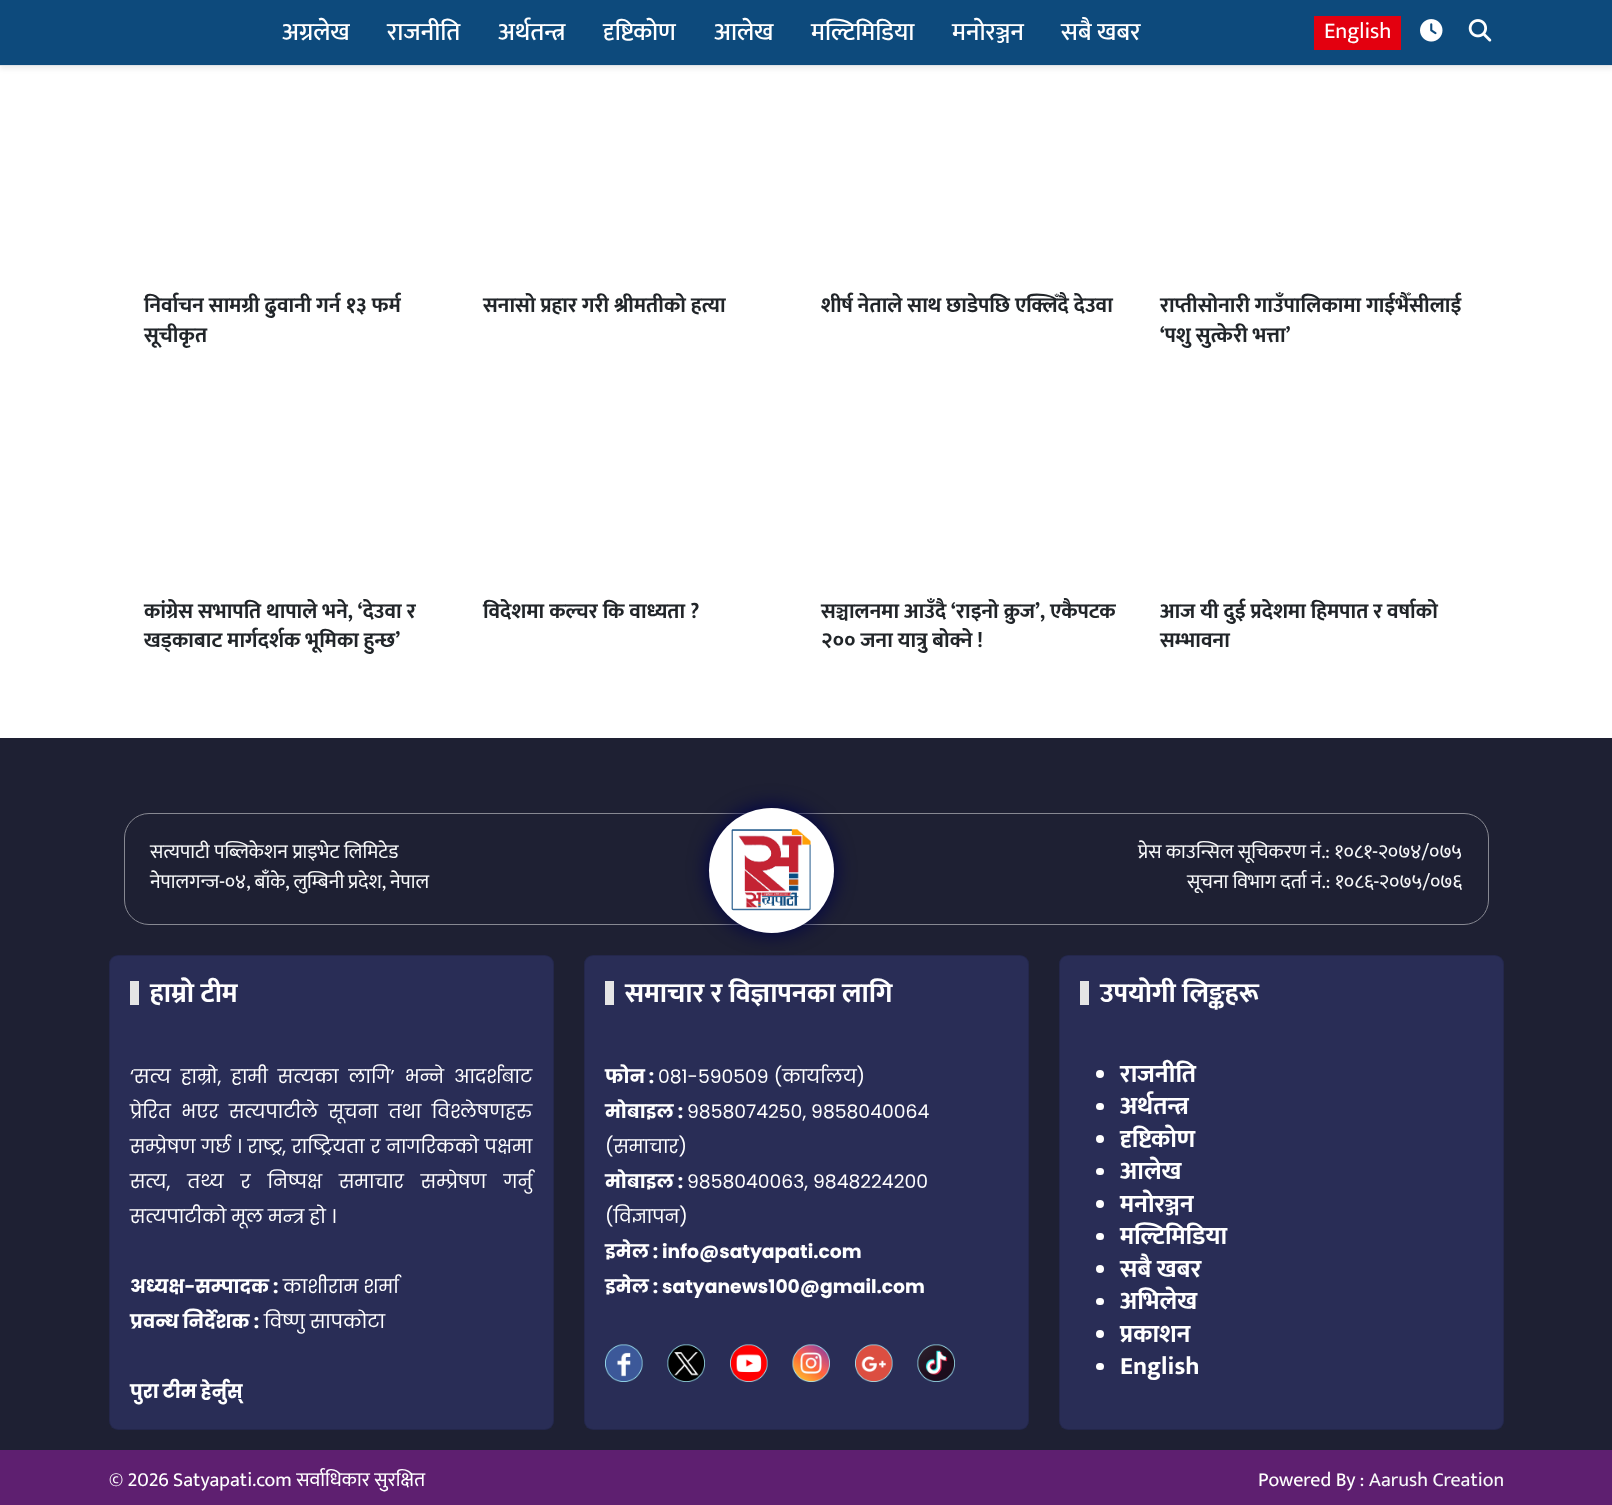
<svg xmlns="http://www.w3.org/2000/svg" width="1612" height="1505">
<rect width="100%" height="100%" fill="#fff"/>
<rect y="3" width="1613" height="66" fill="#00000012" filter="blur(2.5px)"/>
<rect width="1612" height="65" fill="#0d4a7c"/>
<rect y="65" width="1612" height="1" fill="#dee2e6"/>
<text x="282" y="40" style="font-family:Mukta;font-size:25px;font-weight:500;fill:#fff">अग्रलेख</text>
<text x="387" y="40" style="font-family:Mukta;font-size:25px;font-weight:500;fill:#fff">राजनीति</text>
<text x="498" y="40" style="font-family:Mukta;font-size:25px;font-weight:500;fill:#fff">अर्थतन्त्र</text>
<text x="603" y="40" style="font-family:Mukta;font-size:25px;font-weight:500;fill:#fff">दृष्टिकोण</text>
<text x="714" y="40" style="font-family:Mukta;font-size:25px;font-weight:500;fill:#fff">आलेख</text>
<text x="811" y="40" style="font-family:Mukta;font-size:25px;font-weight:500;fill:#fff">मल्टिमिडिया</text>
<text x="952" y="40" style="font-family:Mukta;font-size:25px;font-weight:500;fill:#fff">मनोरञ्जन</text>
<text x="1061" y="40" style="font-family:Mukta;font-size:25px;font-weight:500;fill:#fff">सबै खबर</text>
<rect x="1314" y="16" width="87" height="34" fill="#e3000f"/>
<text x="1324" y="38" style="font-family:Mukta;font-size:22.5px;fill:#fff">English</text>
<image x="1420" y="19" width="23" height="23" href="media/1.png"/>
<image x="1468" y="19" width="24" height="23" href="media/2.png"/>
<text x="144" y="312" style="font-family:Mukta;font-size:21.25px;font-weight:bold;fill:#212529">निर्वाचन सामग्री ढुवानी गर्न १३ फर्म</text>
<text x="144" y="342" style="font-family:Mukta;font-size:21.25px;font-weight:bold;fill:#212529">सूचीकृत</text>
<text x="483" y="312" style="font-family:Mukta;font-size:21.25px;font-weight:bold;fill:#212529">सनासो प्रहार गरी श्रीमतीको हत्या</text>
<text x="821" y="312" style="font-family:Mukta;font-size:21.25px;font-weight:bold;fill:#212529">शीर्ष नेताले साथ छाडेपछि एक्लिँदै देउवा</text>
<text x="1160" y="312" style="font-family:Mukta;font-size:21.25px;font-weight:bold;fill:#212529">राप्तीसोनारी गाउँपालिकामा गाईभैँसीलाई</text>
<text x="1160" y="342" style="font-family:Mukta;font-size:21.25px;font-weight:bold;fill:#212529">‘पशु सुत्केरी भत्ता’</text>
<text x="144" y="618" style="font-family:Mukta;font-size:21.25px;font-weight:bold;fill:#212529">कांग्रेस सभापति थापाले भने, ‘देउवा र</text>
<text x="144" y="647" style="font-family:Mukta;font-size:21.25px;font-weight:bold;fill:#212529">खड्काबाट मार्गदर्शक भूमिका हुन्छ’</text>
<text x="483" y="618" style="font-family:Mukta;font-size:21.25px;font-weight:bold;fill:#212529">विदेशमा कल्चर कि वाध्यता ?</text>
<text x="821" y="618" style="font-family:Mukta;font-size:21.25px;font-weight:bold;fill:#212529">सञ्चालनमा आउँदै ‘राइनो क्रुज’, एकैपटक</text>
<text x="821" y="647" style="font-family:Mukta;font-size:21.25px;font-weight:bold;fill:#212529">२०० जना यात्रु बोक्ने !</text>
<text x="1160" y="618" style="font-family:Mukta;font-size:21.25px;font-weight:bold;fill:#212529">आज यी दुई प्रदेशमा हिमपात र वर्षाको</text>
<text x="1160" y="647" style="font-family:Mukta;font-size:21.25px;font-weight:bold;fill:#212529">सम्भावना</text>
<rect y="738" width="1612" height="712" fill="#1e2033"/>
<rect x="124.5" y="813.5" width="1364" height="111" rx="24.5" fill="none" stroke="#878892"/>
<rect x="584" y="955" width="445" height="475" rx="9" fill="#292d56"/>
<rect x="584.5" y="955.5" width="444" height="474" rx="8.5" fill="none" stroke="#0000001f"/>
<rect x="708" y="806" width="127" height="128" rx="63.5" fill="#000246" filter="blur(9.5px)"/>
<circle cx="771.5" cy="870.5" r="62.5" fill="#fff"/>
<image x="731" y="829" width="80" height="82" href="media/3.png"/>
<text x="150" y="858" style="font-family:Mukta;font-size:20px;fill:#f8f9fa">सत्यपाटी पब्लिकेशन प्राइभेट लिमिटेड</text>
<text x="1138" y="858" style="font-family:Mukta;font-size:20px;fill:#f8f9fa">प्रेस काउन्सिल सूचिकरण नं.: १०८१-२०७४/०७५</text>
<text x="150" y="888" word-spacing="-0.5" style="font-family:Mukta;font-size:20px;fill:#f8f9fa">नेपालगन्ज-०४, बाँके, लुम्बिनी प्रदेश, नेपाल</text>
<text x="1187" y="888" style="font-family:Mukta;font-size:20px;fill:#f8f9fa">सूचना विभाग दर्ता नं.: १०८६-२०७५/०७६</text>
<rect x="109" y="955" width="445" height="475" rx="9" fill="#292d56"/>
<rect x="109.5" y="955.5" width="444" height="474" rx="8.5" fill="none" stroke="#0000001f"/>
<rect x="130" y="981" width="9" height="24" fill="#e5e5e5"/>
<text x="150" y="1002" style="font-family:Mukta;font-size:27.5px;font-weight:bold;fill:#fff">हाम्रो टीम</text>
<text x="130" y="1083" word-spacing="5" style="font-family:Poppins;font-size:18.75px;fill:#fff">‘सत्य हाम्रो, हामी सत्यका लागि’ भन्ने आदर्शबाट</text>
<text x="130" y="1118" word-spacing="5.5" style="font-family:Poppins;font-size:18.75px;fill:#fff">प्रेरित भएर सत्यपाटीले सूचना तथा विश्लेषणहरु</text>
<text x="130" y="1153" word-spacing="0.75" style="font-family:Poppins;font-size:18.75px;fill:#fff">सम्प्रेषण गर्छ । राष्ट्र, राष्ट्रियता र नागरिकको पक्षमा</text>
<text x="130" y="1188" word-spacing="12" style="font-family:Poppins;font-size:18.75px;fill:#fff">सत्य, तथ्य र निष्पक्ष समाचार सम्प्रेषण गर्नु</text>
<text x="130" y="1223" style="font-family:Poppins;font-size:18.75px;fill:#fff">सत्यपाटीको मूल मन्त्र हो ।</text>
<text x="130" y="1293" style="font-family:Poppins;font-size:18.75px;font-weight:bold;fill:#fff">अध्यक्ष-सम्पादक :</text>
<text x="283" y="1293" style="font-family:Poppins;font-size:18.75px;fill:#fff">काशीराम शर्मा</text>
<text x="130" y="1328" style="font-family:Poppins;font-size:18.75px;font-weight:bold;fill:#fff">प्रवन्ध निर्देशक :</text>
<text x="264" y="1328" style="font-family:Poppins;font-size:18.75px;fill:#fff">विष्णु सापकोटा</text>
<text x="130" y="1398" style="font-family:Poppins;font-size:18.75px;font-weight:bold;fill:#fff">पुरा टीम हेर्नुस्</text>
<rect x="605" y="981" width="9" height="24" fill="#e5e5e5"/>
<text x="625" y="1002" style="font-family:Mukta;font-size:27.5px;font-weight:bold;fill:#fff">समाचार र विज्ञापनका लागि</text>
<text x="605" y="1083" style="font-family:Poppins;font-size:18.75px;font-weight:bold;fill:#fff">फोन :</text>
<text x="658" y="1083" style="font-family:Poppins;font-size:18.75px;fill:#fff">०८१-५९०५०९ (कार्यालय)</text>
<text x="605" y="1118" style="font-family:Poppins;font-size:18.75px;font-weight:bold;fill:#fff">मोबाइल :</text>
<text x="687" y="1118" style="font-family:Poppins;font-size:18.75px;fill:#fff">९८५८०७४२५०, ९८५८०४००६४</text>
<text x="605" y="1153" style="font-family:Poppins;font-size:18.75px;fill:#fff">(समाचार)</text>
<text x="605" y="1188" style="font-family:Poppins;font-size:18.75px;font-weight:bold;fill:#fff">मोबाइल :</text>
<text x="687" y="1188" style="font-family:Poppins;font-size:18.75px;fill:#fff">९८५८०४००६३, ९८४८२२४२००</text>
<text x="605" y="1223" style="font-family:Poppins;font-size:18.75px;fill:#fff">(विज्ञापन)</text>
<text x="605" y="1258" style="font-family:Poppins;font-size:18.75px;font-weight:bold;fill:#fff">इमेल : info@satyapati.com</text>
<text x="605" y="1293" style="font-family:Poppins;font-size:18.75px;font-weight:bold;fill:#fff">इमेल : satyanews100@gmail.com</text>
<image x="605" y="1344" width="38" height="38" href="media/4.png"/>
<image x="667" y="1344" width="38" height="38" href="media/5.png"/>
<image x="730" y="1344" width="38" height="38" href="media/6.png"/>
<image x="792" y="1344" width="38" height="38" href="media/7.png"/>
<image x="855" y="1344" width="38" height="38" href="media/8.png"/>
<image x="917" y="1344" width="38" height="38" href="media/9.png"/>
<rect x="1059" y="955" width="445" height="475" rx="9" fill="#292d56"/>
<rect x="1059.5" y="955.5" width="444" height="474" rx="8.5" fill="none" stroke="#0000001f"/>
<rect x="1080" y="981" width="9" height="24" fill="#e5e5e5"/>
<text x="1100" y="1002" style="font-family:Mukta;font-size:27.5px;font-weight:bold;fill:#fff">उपयोगी लिङ्कहरू</text>
<circle cx="1100" cy="1074" r="4" fill="#fff"/>
<text x="1120" y="1082" style="font-family:Mukta;font-size:25px;font-weight:bold;fill:#fff">राजनीति</text>
<rect x="1096" y="1103" width="8" height="7" rx="3.5" fill="#fff"/>
<text x="1120" y="1114" style="font-family:Mukta;font-size:25px;font-weight:bold;fill:#fff">अर्थतन्त्र</text>
<circle cx="1100" cy="1139" r="4" fill="#fff"/>
<text x="1120" y="1147" style="font-family:Mukta;font-size:25px;font-weight:bold;fill:#fff">दृष्टिकोण</text>
<rect x="1096" y="1168" width="8" height="7" rx="3.5" fill="#fff"/>
<text x="1120" y="1179" style="font-family:Mukta;font-size:25px;font-weight:bold;fill:#fff">आलेख</text>
<circle cx="1100" cy="1204" r="4" fill="#fff"/>
<text x="1120" y="1212" style="font-family:Mukta;font-size:25px;font-weight:bold;fill:#fff">मनोरञ्जन</text>
<rect x="1096" y="1233" width="8" height="7" rx="3.5" fill="#fff"/>
<text x="1120" y="1244" style="font-family:Mukta;font-size:25px;font-weight:bold;fill:#fff">मल्टिमिडिया</text>
<circle cx="1100" cy="1269" r="4" fill="#fff"/>
<text x="1120" y="1277" style="font-family:Mukta;font-size:25px;font-weight:bold;fill:#fff">सबै खबर</text>
<rect x="1096" y="1298" width="8" height="7" rx="3.5" fill="#fff"/>
<text x="1120" y="1309" style="font-family:Mukta;font-size:25px;font-weight:bold;fill:#fff">अभिलेख</text>
<circle cx="1100" cy="1334" r="4" fill="#fff"/>
<text x="1120" y="1342" style="font-family:Mukta;font-size:25px;font-weight:bold;fill:#fff">प्रकाशन</text>
<rect x="1096" y="1363" width="8" height="7" rx="3.5" fill="#fff"/>
<text x="1120" y="1374" style="font-family:Mukta;font-size:25px;font-weight:bold;fill:#fff">English</text>
<rect y="1450" width="1612" height="55" fill="#5e1f70"/>
<text x="109" y="1486" style="font-family:Mukta;font-size:20px;fill:#fff">© 2026 Satyapati.com सर्वाधिकार सुरक्षित</text>
<text x="1258" y="1486" style="font-family:Mukta;font-size:20px;fill:#fff">Powered By :</text>
<text x="1369" y="1486" style="font-family:Mukta;font-size:20px;fill:#f8f9fa">Aarush Creation</text>
</svg>
